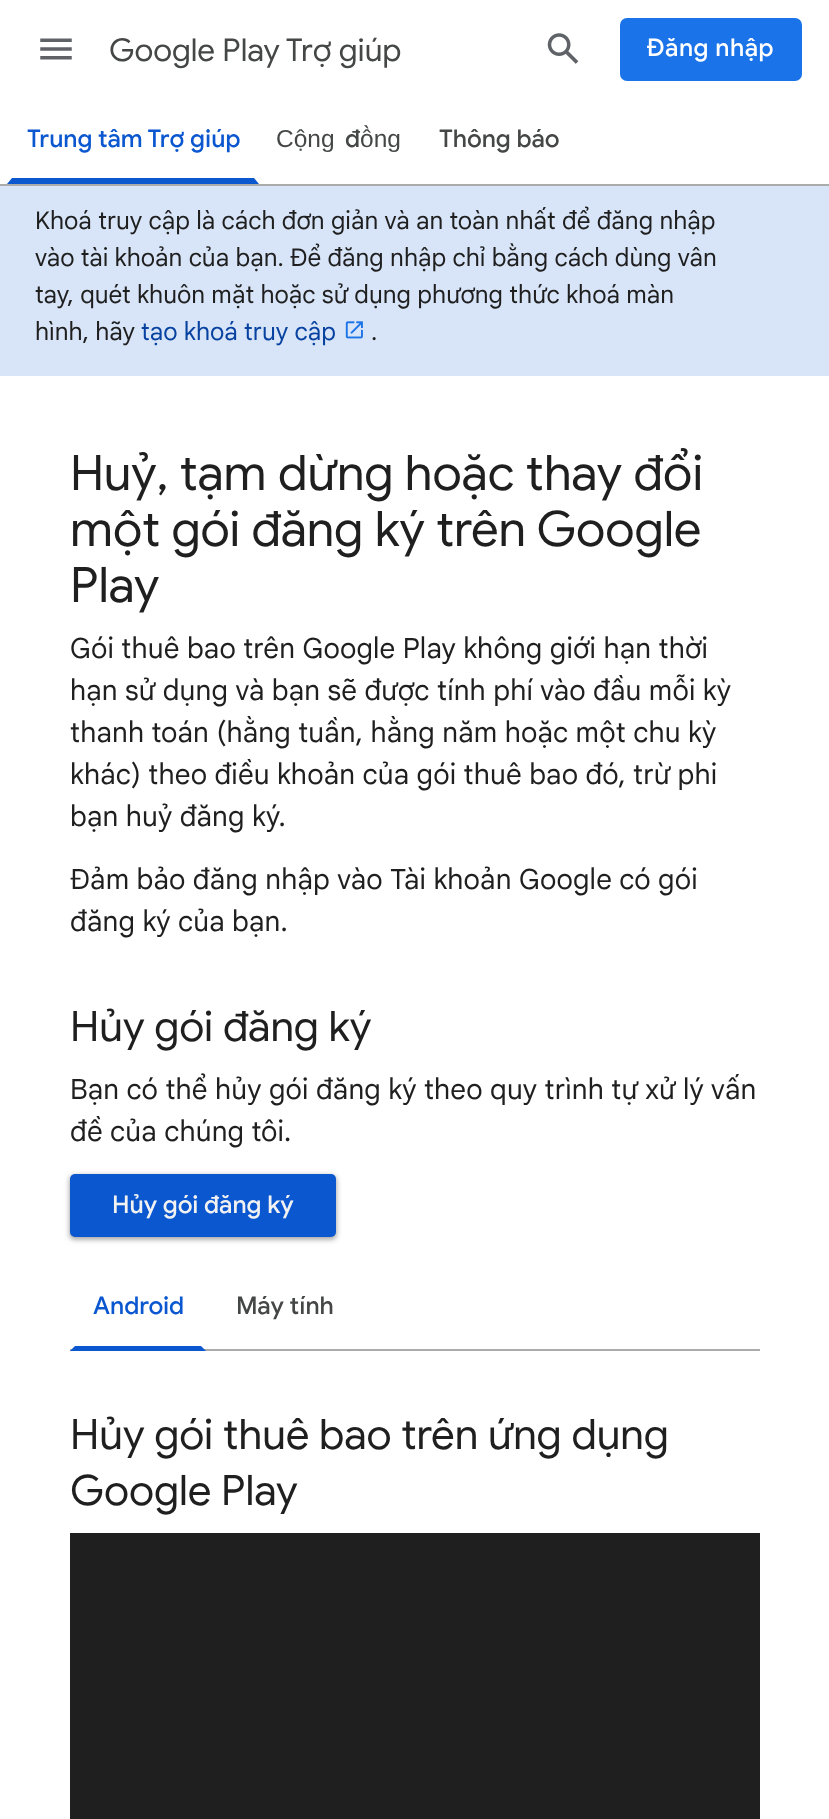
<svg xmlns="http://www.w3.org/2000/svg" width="829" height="1819">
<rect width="100%" height="100%" fill="#fff"/>
<image x="40" y="38" width="32" height="22" href="media/1.png"/>
<text x="109" y="61" style="font-family:Google Sans;font-size:31.5px;fill:#444746">Google Play Trợ giúp</text>
<image x="547" y="33" width="32" height="31" href="media/2.png"/>
<rect x="620" y="18" width="182" height="63" rx="7" fill="#1a73e8"/>
<text x="647" y="56" style="font-family:Google Sans;font-size:24.5px;font-weight:500;letter-spacing:0.5px;fill:#fff">Đăng nhập</text>
<rect y="184" width="829" height="2" fill="#a9acaa"/>
<path d="M259 184h-252l5-6h242z" fill="#0b57d0"/>
<text x="27" y="147" style="font-family:Google Sans;font-size:24.5px;font-weight:500;fill:#0b57d0">Trung tâm Trợ giúp</text>
<text x="276" y="147" style="font-family:Liberation Sans;font-size:24.5px;fill:#444746">Cộng</text>
<text x="345" y="147" style="font-family:Google Sans;font-size:24.5px;font-weight:500;fill:#444746">đ</text>
<text x="360" y="147" style="font-family:Liberation Sans;font-size:24.5px;fill:#444746">ồng</text>
<text x="439" y="147" style="font-family:Google Sans;font-size:24.5px;font-weight:500;fill:#444746">Thông báo</text>
<rect y="186" width="829" height="190" fill="#d8e5f8"/>
<text x="35" y="229" style="font-family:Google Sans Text;font-size:24.5px;fill:#1f1f1f">Khoá truy cập là cách đơn giản và an toàn nhất để đăng nhập</text>
<text x="35" y="266" style="font-family:Google Sans Text;font-size:24.5px;fill:#1f1f1f">vào tài khoản của bạn. Để đăng nhập chỉ bằng cách dùng vân</text>
<text x="35" y="303" style="font-family:Google Sans Text;font-size:24.5px;fill:#1f1f1f">tay, quét khuôn mặt hoặc sử dụng phương thức khoá màn</text>
<text x="35" y="340" style="font-family:Google Sans Text;font-size:24.5px;fill:#1f1f1f">hình, hãy</text>
<text x="141" y="340" style="font-family:Google Sans Text;font-size:24.5px;fill:#0842a0">tạo khoá truy cập</text>
<image x="345" y="321" width="18" height="18" href="media/3.png"/>
<text x="371" y="340" style="font-family:Google Sans Text;font-size:24.5px;fill:#1f1f1f">.</text>
<text x="70" y="490" style="font-family:Google Sans;font-size:49px;fill:#1f1f1f">Huỷ, tạm dừng hoặc thay đổi</text>
<text x="70" y="546" style="font-family:Google Sans;font-size:49px;fill:#1f1f1f">một gói đăng ký trên Google</text>
<text x="70" y="602" style="font-family:Google Sans;font-size:49px;fill:#1f1f1f">Play</text>
<text x="70" y="658" style="font-family:Google Sans Text;font-size:28px;letter-spacing:0.15px;fill:#1f1f1f">Gói thuê bao trên Google Play không giới hạn thời</text>
<text x="70" y="700" style="font-family:Google Sans Text;font-size:28px;letter-spacing:0.15px;fill:#1f1f1f">hạn sử dụng và bạn sẽ được tính phí vào đầu mỗi kỳ</text>
<text x="70" y="742" style="font-family:Google Sans Text;font-size:28px;letter-spacing:0.15px;fill:#1f1f1f">thanh toán (hằng tuần, hằng năm hoặc một chu kỳ</text>
<text x="70" y="784" style="font-family:Google Sans Text;font-size:28px;letter-spacing:0.15px;fill:#1f1f1f">khác) theo điều khoản của gói thuê bao đó, trừ phi</text>
<text x="70" y="826" style="font-family:Google Sans Text;font-size:28px;letter-spacing:0.15px;fill:#1f1f1f">bạn huỷ đăng ký.</text>
<text x="70" y="889" style="font-family:Google Sans Text;font-size:28px;letter-spacing:0.15px;fill:#1f1f1f">Đảm bảo đăng nhập vào Tài khoản Google có gói</text>
<text x="70" y="931" style="font-family:Google Sans Text;font-size:28px;letter-spacing:0.15px;fill:#1f1f1f">đăng ký của bạn.</text>
<text x="70" y="1041" style="font-family:Google Sans;font-size:42px;fill:#1f1f1f">Hủy gói đăng ký</text>
<text x="70" y="1099" style="font-family:Google Sans Text;font-size:28px;letter-spacing:0.15px;fill:#1f1f1f">Bạn có thể hủy gói đăng ký theo quy trình tự xử lý vấn</text>
<text x="70" y="1141" style="font-family:Google Sans Text;font-size:28px;letter-spacing:0.15px;fill:#1f1f1f">đề của chúng tôi.</text>
<rect x="68" y="1174" width="270" height="67" rx="7" fill="#30303026" filter="blur(2.5px)"/>
<rect x="70" y="1176" width="266" height="63" rx="5" fill="#3030304d" filter="blur(2px)"/>
<rect x="70" y="1174" width="266" height="63" rx="5" fill="#0b57d0"/>
<text x="112" y="1213" style="font-family:Google Sans;font-size:24.5px;font-weight:500;fill:#f2f2f2">Hủy gói đăng ký</text>
<rect x="70" y="1349" width="690" height="2" fill="#a9acaa"/>
<path d="M206 1351h-136l5-5h126z" fill="#0b57d0"/>
<text x="93" y="1314" style="font-family:Google Sans;font-size:24.5px;font-weight:500;fill:#0b57d0">Android</text>
<text x="236" y="1314" style="font-family:Google Sans;font-size:24.5px;font-weight:500;fill:#444746">Máy tính</text>
<text x="70" y="1449" style="font-family:Google Sans;font-size:42px;fill:#1f1f1f">Hủy gói thuê bao trên ứng dụng</text>
<text x="70" y="1505" style="font-family:Google Sans;font-size:42px;fill:#1f1f1f">Google Play</text>
<rect x="70" y="1533" width="690" height="286" fill="#1f1f1f"/>
</svg>
